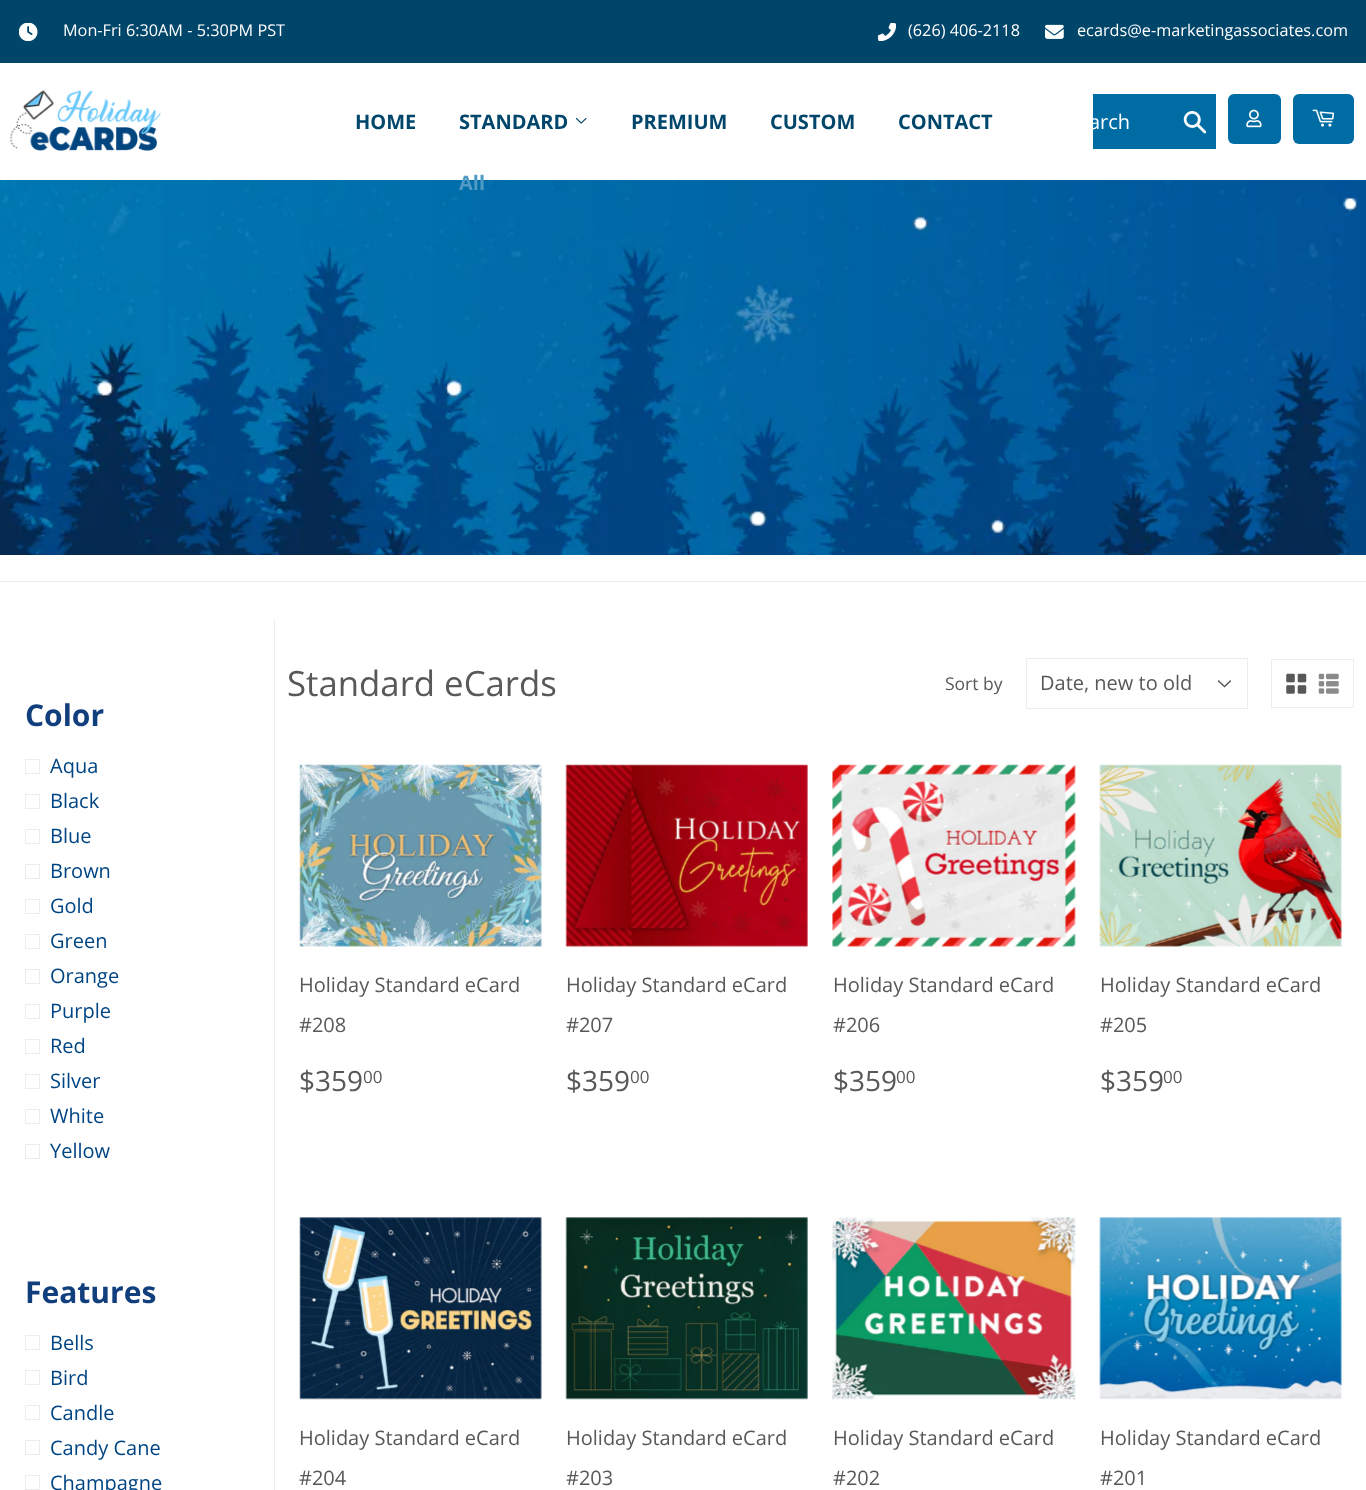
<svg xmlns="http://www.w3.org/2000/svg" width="1366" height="1490">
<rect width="100%" height="100%" fill="#fff"/>
<rect width="1366" height="63" fill="#00456a"/>
<image x="19" y="23" width="19" height="18" href="media/1.png"/>
<text x="63" y="36" style="font-family:Open Sans;font-size:16.25px;fill:#fff">Mon-Fri 6:30AM - 5:30PM PST</text>
<image x="878" y="23" width="18" height="18" href="media/2.png"/>
<text x="908" y="36" style="font-family:Open Sans;font-size:16.25px;fill:#fff">(626) 406-2118</text>
<image x="1045" y="24" width="19" height="15" href="media/3.png"/>
<text x="1077" y="36" style="font-family:Open Sans;font-size:16.25px;fill:#fff">ecards@e-marketingassociates.com</text>
<text x="355" y="129" style="font-family:Open Sans;font-size:20px;font-weight:bold;fill:#00456a">HOME</text>
<text x="459" y="129" style="font-family:Open Sans;font-size:20px;font-weight:bold;fill:#00456a">STANDARD</text>
<image x="575" y="117" width="12" height="7" href="media/4.png"/>
<image x="0" y="180" width="1366" height="375" href="media/9.png"/>
<text x="459" y="190" style="font-family:Open Sans;font-size:20px;font-weight:bold;fill:#509bc5">All</text>
<text x="534" y="471" style="font-family:Open Sans;font-size:20px;font-weight:bold;fill:#0164a1">ar</text>
<text x="631" y="129" style="font-family:Open Sans;font-size:20px;font-weight:bold;fill:#00456a">PREMIUM</text>
<text x="770" y="129" style="font-family:Open Sans;font-size:20px;font-weight:bold;fill:#00456a">CUSTOM</text>
<text x="898" y="129" style="font-family:Open Sans;font-size:20px;font-weight:bold;fill:#00456a">CONTACT</text>
<image x="10" y="90" width="151" height="61" href="media/5.png"/>
<rect x="1093" y="94" width="123" height="55" fill="#006ca4"/>
<text x="1089" y="129" style="font-family:Open Sans;font-size:20px;fill:#fff">arch</text>
<image x="1183" y="111" width="24" height="23" href="media/6.png"/>
<rect x="1228" y="94" width="53" height="50" rx="6" fill="#006ca4"/>
<image x="1246" y="109" width="16" height="19" href="media/7.png"/>
<rect x="1293" y="94" width="61" height="50" rx="6" fill="#006ca4"/>
<image x="1312" y="109" width="23" height="18" href="media/8.png"/>
<rect y="581" width="1366" height="1" fill="#ececec"/>
<text x="25" y="726" style="font-family:Open Sans;font-size:30px;font-weight:bold;fill:#113e7c">Color</text>
<rect x="25.5" y="759.5" width="14" height="14" fill="none" stroke="#ececec"/>
<text x="50" y="773" style="font-family:Open Sans;font-size:20px;fill:#004583">Aqua</text>
<rect x="25.5" y="794.5" width="14" height="14" fill="none" stroke="#ececec"/>
<text x="50" y="808" style="font-family:Open Sans;font-size:20px;fill:#004583">Black</text>
<rect x="25.5" y="829.5" width="14" height="14" fill="none" stroke="#ececec"/>
<text x="50" y="843" style="font-family:Open Sans;font-size:20px;fill:#004583">Blue</text>
<rect x="25.5" y="864.5" width="14" height="14" fill="none" stroke="#ececec"/>
<text x="50" y="878" style="font-family:Open Sans;font-size:20px;fill:#004583">Brown</text>
<rect x="25.5" y="899.5" width="14" height="14" fill="none" stroke="#ececec"/>
<text x="50" y="913" style="font-family:Open Sans;font-size:20px;fill:#004583">Gold</text>
<rect x="25.5" y="934.5" width="14" height="14" fill="none" stroke="#ececec"/>
<text x="50" y="948" style="font-family:Open Sans;font-size:20px;fill:#004583">Green</text>
<rect x="25.5" y="969.5" width="14" height="14" fill="none" stroke="#ececec"/>
<text x="50" y="983" style="font-family:Open Sans;font-size:20px;fill:#004583">Orange</text>
<rect x="25.5" y="1004.5" width="14" height="14" fill="none" stroke="#ececec"/>
<text x="50" y="1018" style="font-family:Open Sans;font-size:20px;fill:#004583">Purple</text>
<rect x="25.5" y="1039.5" width="14" height="14" fill="none" stroke="#ececec"/>
<text x="50" y="1053" style="font-family:Open Sans;font-size:20px;fill:#004583">Red</text>
<rect x="25.5" y="1074.5" width="14" height="14" fill="none" stroke="#ececec"/>
<text x="50" y="1088" style="font-family:Open Sans;font-size:20px;fill:#004583">Silver</text>
<rect x="25.5" y="1109.5" width="14" height="14" fill="none" stroke="#ececec"/>
<text x="50" y="1123" style="font-family:Open Sans;font-size:20px;fill:#004583">White</text>
<rect x="25.5" y="1144.5" width="14" height="14" fill="none" stroke="#ececec"/>
<text x="50" y="1158" style="font-family:Open Sans;font-size:20px;fill:#004583">Yellow</text>
<text x="25" y="1303" style="font-family:Open Sans;font-size:30px;font-weight:bold;fill:#113e7c">Features</text>
<rect x="25.5" y="1335.5" width="14" height="14" fill="none" stroke="#ececec"/>
<text x="50" y="1350" style="font-family:Open Sans;font-size:20px;fill:#004583">Bells</text>
<rect x="25.5" y="1370.5" width="14" height="14" fill="none" stroke="#ececec"/>
<text x="50" y="1385" style="font-family:Open Sans;font-size:20px;fill:#004583">Bird</text>
<rect x="25.5" y="1405.5" width="14" height="14" fill="none" stroke="#ececec"/>
<text x="50" y="1420" style="font-family:Open Sans;font-size:20px;fill:#004583">Candle</text>
<rect x="25.5" y="1440.5" width="14" height="14" fill="none" stroke="#ececec"/>
<text x="50" y="1455" style="font-family:Open Sans;font-size:20px;fill:#004583">Candy Cane</text>
<rect x="25.5" y="1475.5" width="14" height="14" fill="none" stroke="#ececec"/>
<text x="50" y="1490" style="font-family:Open Sans;font-size:20px;fill:#004583">Champagne</text>
<rect x="274" y="620" width="1" height="870" fill="#ececec"/>
<text x="287" y="696" style="font-family:Open Sans;font-size:34.75px;fill:#585858">Standard eCards</text>
<text x="945" y="690" style="font-family:Open Sans;font-size:17.5px;fill:#585858">Sort by</text>
<image x="1217" y="680" width="15" height="8" href="media/10.png"/>
<rect x="1026.5" y="658.5" width="221" height="50" fill="none" stroke="#ececec"/>
<text x="1040" y="690" style="font-family:Open Sans;font-size:20px;fill:#585858">Date, new to old</text>
<rect x="1271.5" y="659.5" width="82" height="48" fill="none" stroke="#ececec"/>
<image x="1286" y="673" width="21" height="21" href="media/11.png"/>
<image x="1318" y="673" width="21" height="21" href="media/12.png"/>
<image x="299" y="764" width="243" height="183" href="media/13.png"/>
<text x="299" y="992" style="font-family:Open Sans;font-size:20px;fill:#585858">Holiday Standard eCard</text>
<text x="299" y="1032" style="font-family:Open Sans;font-size:20px;fill:#585858">#208</text>
<text x="299" y="1091" style="font-family:Open Sans;font-size:28px;fill:#585858">$359</text>
<text x="363" y="1083" style="font-family:Open Sans;font-size:17px;fill:#585858">00</text>
<image x="565" y="764" width="243" height="183" href="media/14.png"/>
<text x="566" y="992" style="font-family:Open Sans;font-size:20px;fill:#585858">Holiday Standard eCard</text>
<text x="566" y="1032" style="font-family:Open Sans;font-size:20px;fill:#585858">#207</text>
<text x="566" y="1091" style="font-family:Open Sans;font-size:28px;fill:#585858">$359</text>
<text x="630" y="1083" style="font-family:Open Sans;font-size:17px;fill:#585858">00</text>
<image x="832" y="764" width="244" height="183" href="media/15.png"/>
<text x="833" y="992" style="font-family:Open Sans;font-size:20px;fill:#585858">Holiday Standard eCard</text>
<text x="833" y="1032" style="font-family:Open Sans;font-size:20px;fill:#585858">#206</text>
<text x="833" y="1091" style="font-family:Open Sans;font-size:28px;fill:#585858">$359</text>
<text x="896" y="1083" style="font-family:Open Sans;font-size:17px;fill:#585858">00</text>
<image x="1099" y="764" width="243" height="183" href="media/16.png"/>
<text x="1100" y="992" style="font-family:Open Sans;font-size:20px;fill:#585858">Holiday Standard eCard</text>
<text x="1100" y="1032" style="font-family:Open Sans;font-size:20px;fill:#585858">#205</text>
<text x="1100" y="1091" style="font-family:Open Sans;font-size:28px;fill:#585858">$359</text>
<text x="1163" y="1083" style="font-family:Open Sans;font-size:17px;fill:#585858">00</text>
<image x="299" y="1217" width="243" height="183" href="media/17.png"/>
<text x="299" y="1445" style="font-family:Open Sans;font-size:20px;fill:#585858">Holiday Standard eCard</text>
<text x="299" y="1485" style="font-family:Open Sans;font-size:20px;fill:#585858">#204</text>
<image x="565" y="1217" width="243" height="183" href="media/18.png"/>
<text x="566" y="1445" style="font-family:Open Sans;font-size:20px;fill:#585858">Holiday Standard eCard</text>
<text x="566" y="1485" style="font-family:Open Sans;font-size:20px;fill:#585858">#203</text>
<image x="832" y="1217" width="244" height="183" href="media/19.png"/>
<text x="833" y="1445" style="font-family:Open Sans;font-size:20px;fill:#585858">Holiday Standard eCard</text>
<text x="833" y="1485" style="font-family:Open Sans;font-size:20px;fill:#585858">#202</text>
<image x="1099" y="1217" width="243" height="183" href="media/20.png"/>
<text x="1100" y="1445" style="font-family:Open Sans;font-size:20px;fill:#585858">Holiday Standard eCard</text>
<text x="1100" y="1485" style="font-family:Open Sans;font-size:20px;fill:#585858">#201</text>
</svg>
